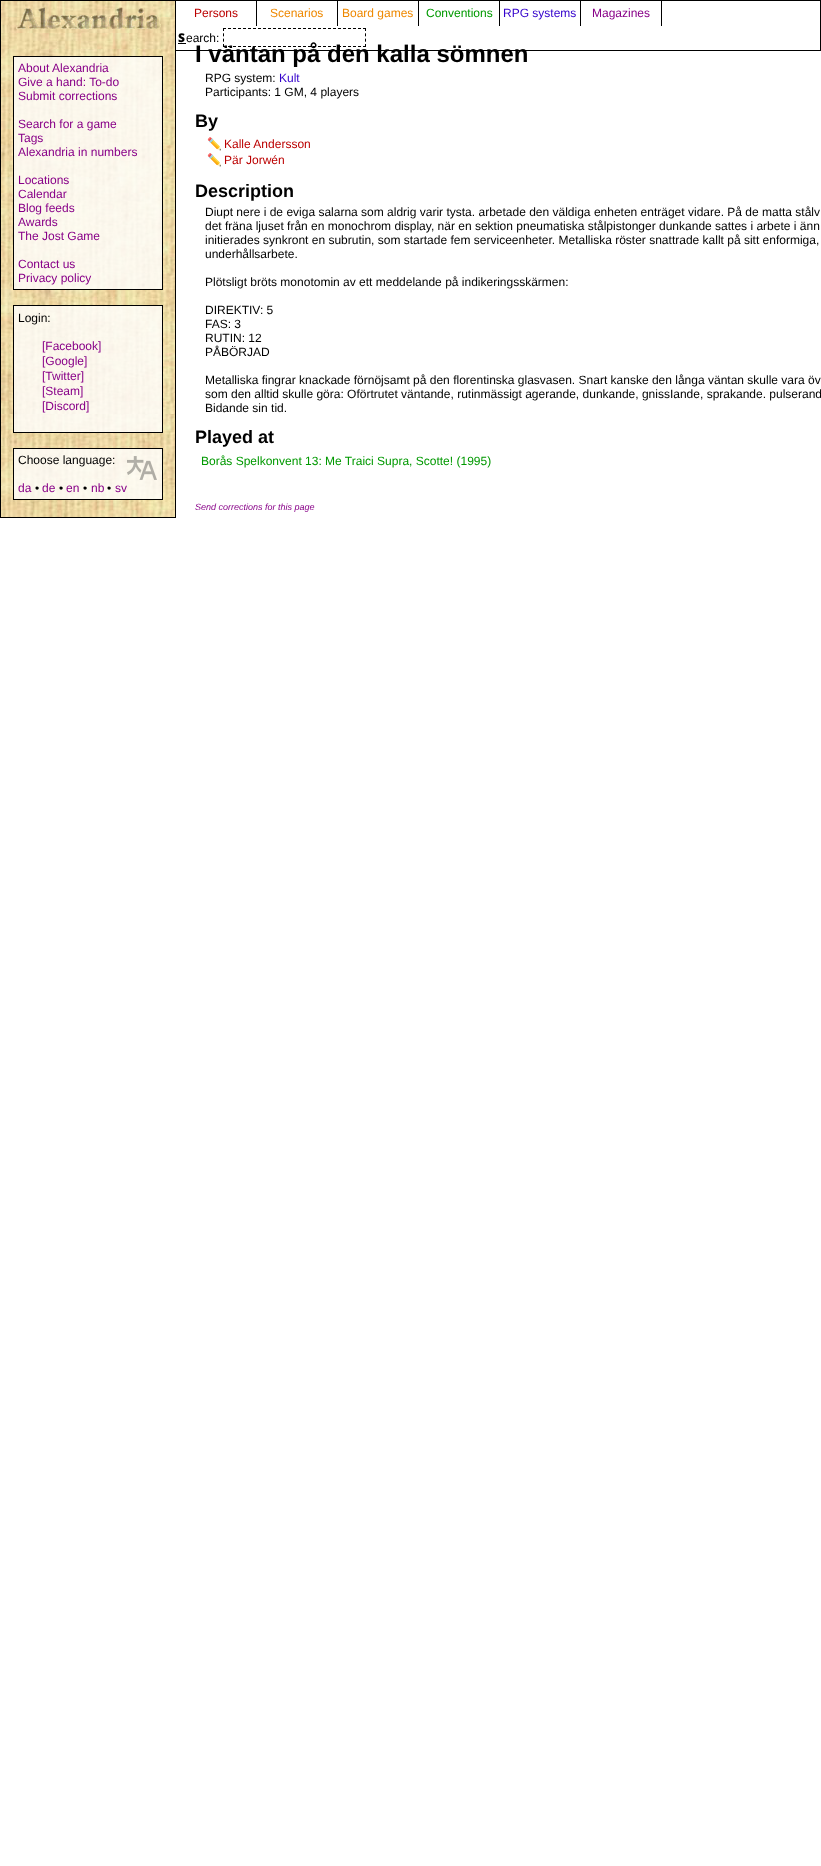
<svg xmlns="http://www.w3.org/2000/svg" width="821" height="1866">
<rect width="100%" height="100%" fill="#fff"/>
<image x="1" y="1" width="174" height="516" href="media/1.png"/>
<rect x="0.5" y="0.5" width="175" height="517" fill="none" stroke="#000"/>
<rect x="175.5" y="0.5" width="645" height="50" fill="none" stroke="#000"/>
<rect x="256" y="1" width="1" height="25" fill="#000"/>
<text x="194" y="17" style="font-family:Liberation Sans;font-size:12px;fill:#b00">Persons</text>
<rect x="337" y="1" width="1" height="25" fill="#000"/>
<text x="270" y="17" style="font-family:Liberation Sans;font-size:12px;fill:#e80">Scenarios</text>
<rect x="418" y="1" width="1" height="25" fill="#000"/>
<text x="342" y="17" style="font-family:Liberation Sans;font-size:12px;fill:#e80">Board games</text>
<rect x="499" y="1" width="1" height="25" fill="#000"/>
<text x="426" y="17" style="font-family:Liberation Sans;font-size:12px;fill:#090">Conventions</text>
<rect x="580" y="1" width="1" height="25" fill="#000"/>
<text x="503" y="17" style="font-family:Liberation Sans;font-size:12px;fill:#30c">RPG systems</text>
<rect x="661" y="1" width="1" height="25" fill="#000"/>
<text x="592" y="17" style="font-family:Liberation Sans;font-size:12px;fill:#808">Magazines</text>
<text x="178" y="42" style="font-family:Noto Sans;font-size:12px;font-weight:900;fill:#000">S</text>
<rect x="178" y="43" width="8" height="1" fill="#000"/>
<text x="186" y="42" style="font-family:Liberation Sans;font-size:12px;fill:#000">earch:</text>
<path d="M223 28.5h143" fill="none" stroke="#000" stroke-dasharray="3 2"/>
<path d="M365.5 28v19" fill="none" stroke="#000" stroke-dasharray="3 2.33"/>
<path d="M223 46.5h143" fill="none" stroke="#000" stroke-dasharray="3 2"/>
<path d="M223.5 28v19" fill="none" stroke="#000" stroke-dasharray="3 2.33"/>
<image x="16" y="7" width="148" height="25" href="media/2.png"/>
<rect x="13.5" y="56.5" width="149" height="233" fill="#ffffffcc" stroke="#000"/>
<text x="18" y="72" style="font-family:Liberation Sans;font-size:12px;fill:#808">About Alexandria</text>
<text x="18" y="86" style="font-family:Liberation Sans;font-size:12px;fill:#808">Give a hand: To-do</text>
<text x="18" y="100" style="font-family:Liberation Sans;font-size:12px;fill:#808">Submit corrections</text>
<text x="18" y="128" style="font-family:Liberation Sans;font-size:12px;fill:#808">Search for a game</text>
<text x="18" y="142" style="font-family:Liberation Sans;font-size:12px;fill:#808">Tags</text>
<text x="18" y="156" style="font-family:Liberation Sans;font-size:12px;fill:#808">Alexandria in numbers</text>
<text x="18" y="184" style="font-family:Liberation Sans;font-size:12px;fill:#808">Locations</text>
<text x="18" y="198" style="font-family:Liberation Sans;font-size:12px;fill:#808">Calendar</text>
<text x="18" y="212" style="font-family:Liberation Sans;font-size:12px;fill:#808">Blog feeds</text>
<text x="18" y="226" style="font-family:Liberation Sans;font-size:12px;fill:#808">Awards</text>
<text x="18" y="240" style="font-family:Liberation Sans;font-size:12px;fill:#808">The Jost Game</text>
<text x="18" y="268" style="font-family:Liberation Sans;font-size:12px;fill:#808">Contact us</text>
<text x="18" y="282" style="font-family:Liberation Sans;font-size:12px;fill:#808">Privacy policy</text>
<rect x="13.5" y="305.5" width="149" height="127" fill="#ffffffcc" stroke="#000"/>
<text x="18" y="322" style="font-family:Liberation Sans;font-size:12px;fill:#000">Login:</text>
<text x="42" y="350" style="font-family:Liberation Sans;font-size:12px;fill:#808">[Facebook]</text>
<text x="42" y="365" style="font-family:Liberation Sans;font-size:12px;fill:#808">[Google]</text>
<text x="42" y="380" style="font-family:Liberation Sans;font-size:12px;fill:#808">[Twitter]</text>
<text x="42" y="395" style="font-family:Liberation Sans;font-size:12px;fill:#808">[Steam]</text>
<text x="42" y="410" style="font-family:Liberation Sans;font-size:12px;fill:#808">[Discord]</text>
<rect x="13.5" y="448.5" width="149" height="51" fill="#ffffffcc" stroke="#000"/>
<text x="18" y="464" style="font-family:Liberation Sans;font-size:12px;fill:#000">Choose language:</text>
<image x="127" y="456" width="30" height="24" href="media/3.png"/>
<text x="18" y="492" style="font-family:Liberation Sans;font-size:12px;fill:#808">da</text>
<text x="35" y="492" style="font-family:Liberation Sans;font-size:12px;fill:#000">•</text>
<text x="42" y="492" style="font-family:Liberation Sans;font-size:12px;fill:#808">de</text>
<text x="59" y="492" style="font-family:Liberation Sans;font-size:12px;fill:#000">•</text>
<text x="66" y="492" style="font-family:Liberation Sans;font-size:12px;fill:#808">en</text>
<text x="83" y="492" style="font-family:Liberation Sans;font-size:12px;fill:#000">•</text>
<text x="91" y="492" style="font-family:Liberation Sans;font-size:12px;fill:#808">nb</text>
<text x="107" y="492" style="font-family:Liberation Sans;font-size:12px;fill:#000">•</text>
<text x="115" y="492" style="font-family:Liberation Sans;font-size:12px;fill:#808">sv</text>
<text x="195" y="62" style="font-family:Liberation Sans;font-size:24px;font-weight:bold;fill:#000">I väntan på den kalla sömnen</text>
<text x="205" y="82" style="font-family:Liberation Sans;font-size:12px;fill:#000">RPG system:</text>
<text x="279" y="82" style="font-family:Liberation Sans;font-size:12px;fill:#30c">Kult</text>
<text x="205" y="96" style="font-family:Liberation Sans;font-size:12px;fill:#000">Participants: 1 GM, 4 players</text>
<text x="195" y="127" style="font-family:Liberation Sans;font-size:18px;font-weight:bold;fill:#000">By</text>
<text x="207" y="148" style="font-family:Noto Color Emoji;font-size:12px;fill:#000">✏️</text>
<text x="224" y="148" style="font-family:Liberation Sans;font-size:12px;fill:#b00">Kalle Andersson</text>
<text x="207" y="164" style="font-family:Noto Color Emoji;font-size:12px;fill:#000">✏️</text>
<text x="224" y="164" style="font-family:Liberation Sans;font-size:12px;fill:#b00">Pär Jorwén</text>
<text x="195" y="197" style="font-family:Liberation Sans;font-size:18px;font-weight:bold;fill:#000">Description</text>
<text x="205" y="216" style="font-family:Liberation Sans;font-size:12px;fill:#000">Diupt nere i de eviga salarna som aldrig varir tysta. arbetade den väldiga enheten enträget vidare. På de matta stålv</text>
<text x="205" y="230" style="font-family:Liberation Sans;font-size:12px;fill:#000">det fräna ljuset från en monochrom display, när en sektion pneumatiska stålpistonger dunkande sattes i arbete i änn</text>
<text x="205" y="244" style="font-family:Liberation Sans;font-size:12px;fill:#000">initierades synkront en subrutin, som startade fem serviceenheter. Metalliska röster snattrade kallt på sitt enformiga,</text>
<text x="205" y="258" style="font-family:Liberation Sans;font-size:12px;fill:#000">underhållsarbete.</text>
<text x="205" y="286" style="font-family:Liberation Sans;font-size:12px;fill:#000">Plötsligt bröts monotomin av ett meddelande på indikeringsskärmen:</text>
<text x="205" y="314" style="font-family:Liberation Sans;font-size:12px;fill:#000">DIREKTIV: 5</text>
<text x="205" y="328" style="font-family:Liberation Sans;font-size:12px;fill:#000">FAS: 3</text>
<text x="205" y="342" style="font-family:Liberation Sans;font-size:12px;fill:#000">RUTIN: 12</text>
<text x="205" y="356" style="font-family:Liberation Sans;font-size:12px;fill:#000">PÅBÖRJAD</text>
<text x="205" y="384" style="font-family:Liberation Sans;font-size:12px;fill:#000">Metalliska fingrar knackade förnöjsamt på den florentinska glasvasen. Snart kanske den långa väntan skulle vara öv</text>
<text x="205" y="398" style="font-family:Liberation Sans;font-size:12px;fill:#000">som den alltid skulle göra: Oförtrutet väntande, rutinmässigt agerande, dunkande, gnissIande, sprakande. pulserand</text>
<text x="205" y="412" style="font-family:Liberation Sans;font-size:12px;fill:#000">Bidande sin tid.</text>
<text x="195" y="443" style="font-family:Liberation Sans;font-size:18px;font-weight:bold;fill:#000">Played at</text>
<text x="201" y="465" style="font-family:Liberation Sans;font-size:12px;fill:#090">Borås Spelkonvent 13: Me Traici Supra, Scotte! (1995)</text>
<text x="195" y="510" style="font-family:Liberation Sans;font-size:9px;font-style:italic;fill:#808">Send corrections for this page</text>
</svg>
